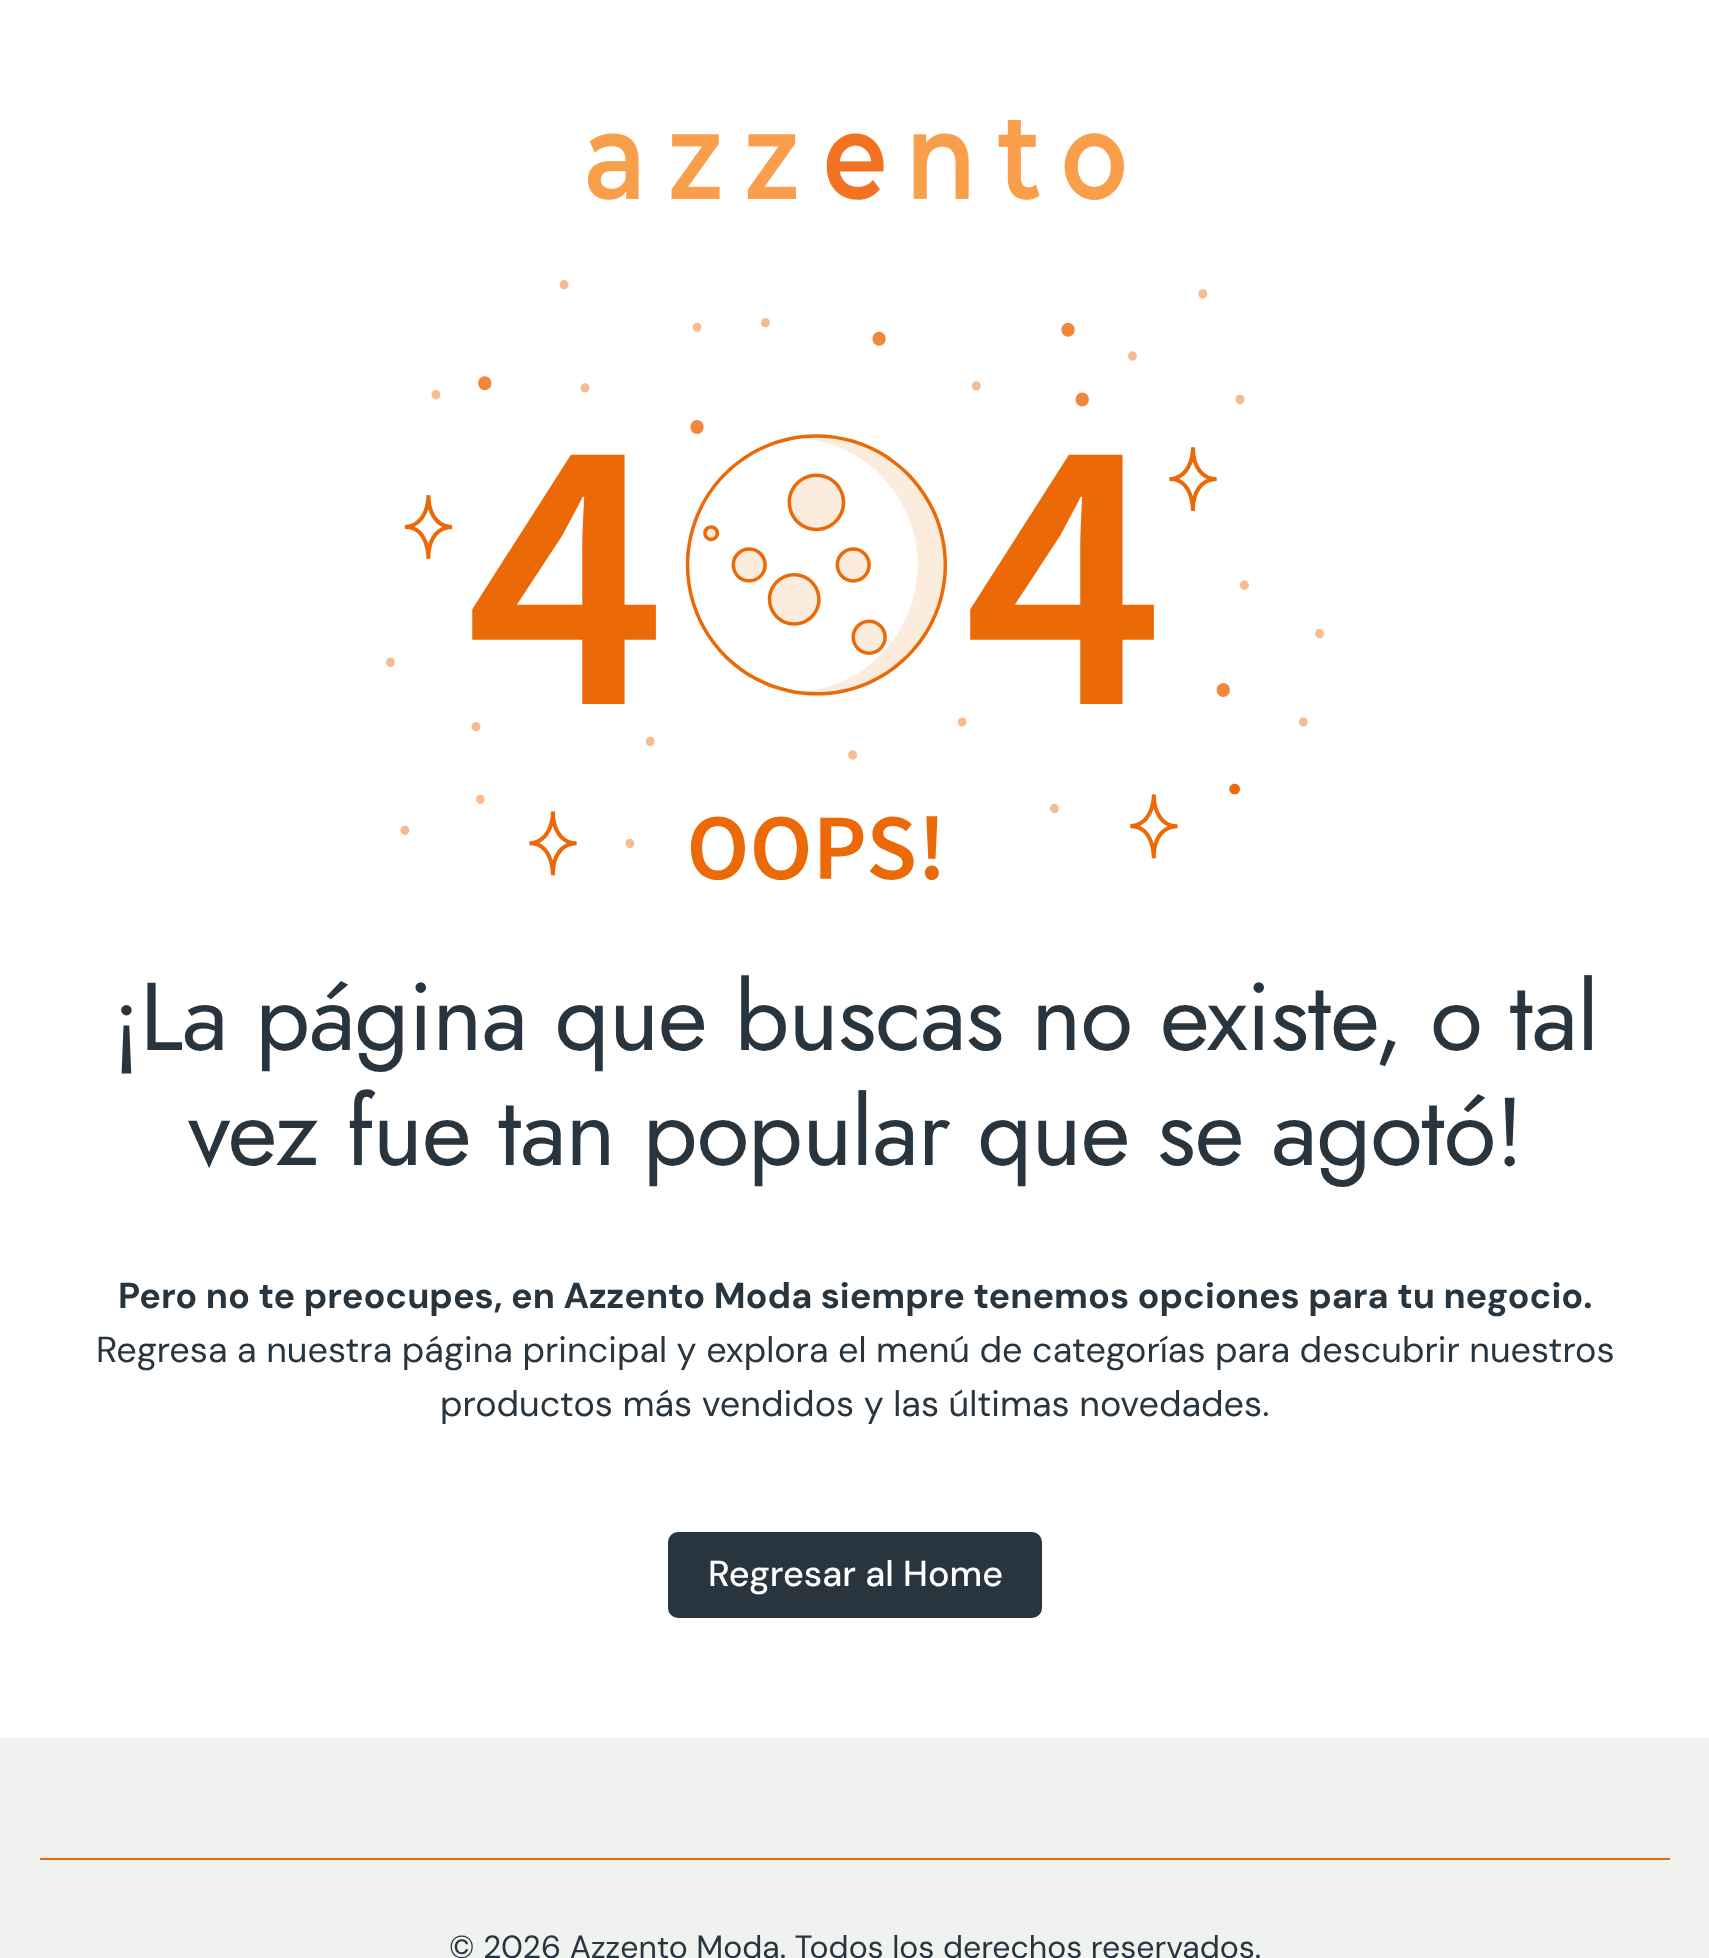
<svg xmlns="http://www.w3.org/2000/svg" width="1709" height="1958">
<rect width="100%" height="100%" fill="#fff"/>
<image x="588" y="120" width="536" height="80" href="media/1.png"/>
<image x="386" y="280" width="938" height="600" href="media/2.png"/>
<text x="112" y="1050" style="font-family:Jost;font-size:96px;letter-spacing:-0.95px;fill:#28353f">¡La página que buscas no existe, o tal</text>
<text x="188" y="1165" style="font-family:Jost;font-size:96px;letter-spacing:-0.95px;fill:#28353f">vez fue tan popular que se agotó!</text>
<text x="118" y="1308" style="font-family:DM Sans;font-size:36px;font-weight:bold;fill:#28353f">Pero no te preocupes, en Azzento Moda siempre tenemos opciones para tu negocio.</text>
<text x="96" y="1362" style="font-family:DM Sans;font-size:36px;fill:#28353f">Regresa a nuestra página principal y explora el menú de categorías para descubrir nuestros</text>
<text x="440" y="1416" style="font-family:DM Sans;font-size:36px;fill:#28353f">productos más vendidos y las últimas novedades.</text>
<rect x="668" y="1532" width="374" height="86" rx="10" fill="#28353f"/>
<text x="708" y="1586" style="font-family:DM Sans;font-size:36px;font-weight:500;fill:#fff">Regresar al Home</text>
<rect y="1738" width="1709" height="220" fill="#f0f2ef"/>
<rect x="40" y="1858" width="1630" height="2" fill="#ec6907"/>
<text x="449" y="1958" style="font-family:DM Sans;font-size:32px;fill:#28353f">© 2026 Azzento Moda. Todos los derechos reservados.</text>
</svg>
